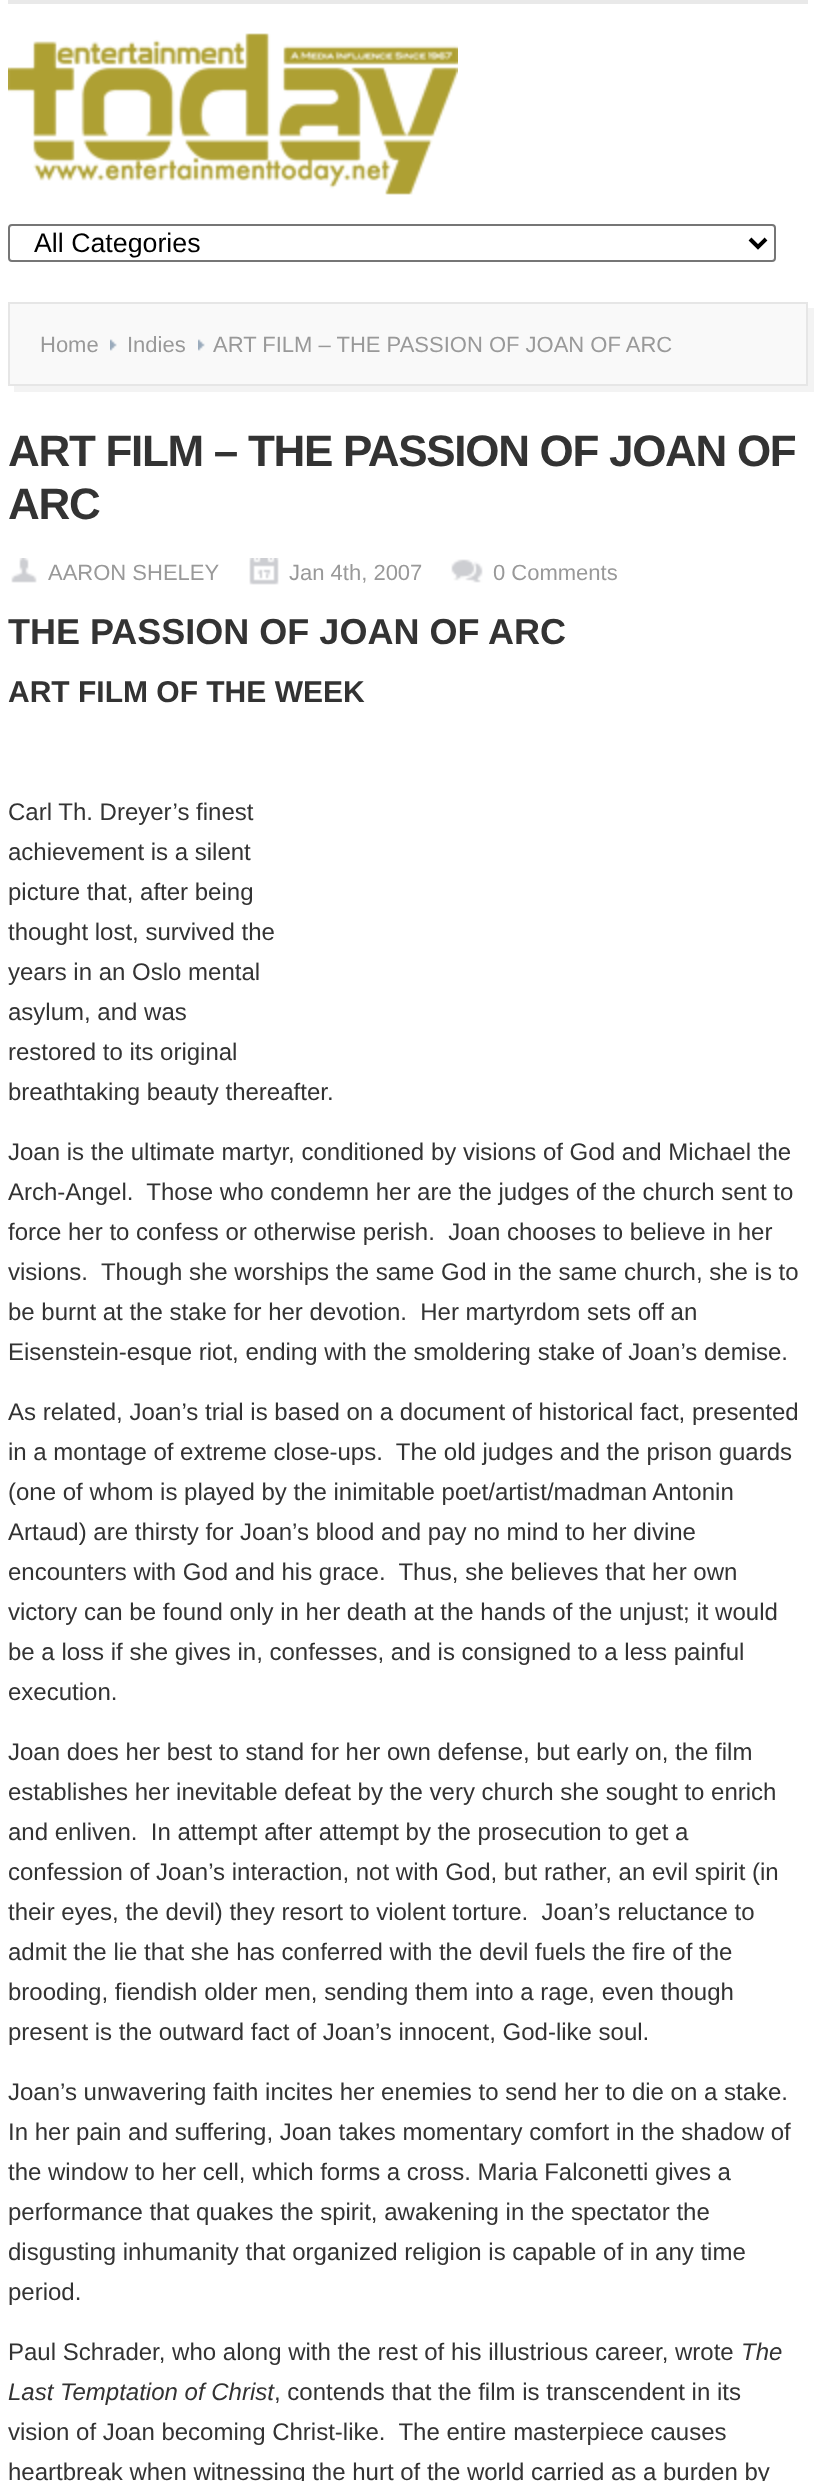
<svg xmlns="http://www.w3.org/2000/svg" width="816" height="2481">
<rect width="100%" height="100%" fill="#fff"/>
<rect x="8" width="800" height="4" fill="#e9e9e9"/>
<image x="8" y="33" width="450" height="162" href="media/1.png"/>
<rect x="9" y="225" width="766" height="36" rx="3" fill="none" stroke="#767676" stroke-width="2"/>
<path d="M750 239l8 8l8-8" fill="none" stroke="#000" stroke-width="4"/>
<text x="34" y="252" style="font-family:Liberation Sans;font-size:26.75px;fill:#000">All Categories</text>
<path d="M14 386v6h800v-84h-6v78z" fill="#f3f3f3"/>
<rect x="9" y="303" width="798" height="82" fill="#f9f9f9" stroke="#e6e6e6" stroke-width="2"/>
<text x="40" y="352" style="font-family:Liberation Sans;font-size:22px;fill:#999">Home</text>
<image x="110" y="339" width="7" height="12" href="media/2.png"/>
<text x="127" y="352" style="font-family:Liberation Sans;font-size:22px;fill:#999">Indies</text>
<image x="198" y="339" width="7" height="12" href="media/2.png"/>
<text x="213" y="352" style="font-family:Liberation Sans;font-size:22px;fill:#999">ART FILM – THE PASSION OF JOAN OF ARC</text>
<text x="8" y="466" style="font-family:Liberation Sans;font-size:44px;font-weight:bold;letter-spacing:-1.3px;fill:#333">ART FILM – THE PASSION OF JOAN OF</text>
<text x="8" y="519" style="font-family:Liberation Sans;font-size:44px;font-weight:bold;letter-spacing:-1.3px;fill:#333">ARC</text>
<image x="11" y="558" width="26" height="25" href="media/3.png"/>
<text x="48" y="580" style="font-family:Liberation Sans;font-size:22px;fill:#999">AARON SHELEY</text>
<image x="249" y="558" width="30" height="27" href="media/4.png"/>
<text x="289" y="580" style="font-family:Liberation Sans;font-size:22px;fill:#999">Jan 4th, 2007</text>
<image x="451" y="559" width="32" height="24" href="media/5.png"/>
<text x="493" y="580" style="font-family:Liberation Sans;font-size:22px;fill:#999">0 Comments</text>
<text x="8" y="644" style="font-family:Liberation Sans;font-size:36px;font-weight:bold;fill:#333">THE PASSION OF JOAN OF ARC</text>
<text x="8" y="702" style="font-family:Liberation Sans;font-size:30px;font-weight:bold;fill:#333">ART FILM OF THE WEEK</text>
<text x="8" y="820" style="font-family:Liberation Sans;font-size:24px;fill:#333">Carl Th. Dreyer’s finest</text>
<text x="8" y="860" style="font-family:Liberation Sans;font-size:24px;fill:#333">achievement is a silent</text>
<text x="8" y="900" style="font-family:Liberation Sans;font-size:24px;fill:#333">picture that, after being</text>
<text x="8" y="940" style="font-family:Liberation Sans;font-size:24px;fill:#333">thought lost, survived the</text>
<text x="8" y="980" style="font-family:Liberation Sans;font-size:24px;fill:#333">years in an Oslo mental</text>
<text x="8" y="1020" style="font-family:Liberation Sans;font-size:24px;fill:#333">asylum, and was</text>
<text x="8" y="1060" style="font-family:Liberation Sans;font-size:24px;fill:#333">restored to its original</text>
<text x="8" y="1100" style="font-family:Liberation Sans;font-size:24px;fill:#333">breathtaking beauty thereafter.</text>
<text x="8" y="1160" style="font-family:Liberation Sans;font-size:24px;fill:#333">Joan is the ultimate martyr, conditioned by visions of God and Michael the</text>
<text x="8" y="1200" style="font-family:Liberation Sans;font-size:24px;fill:#333" xml:space="preserve">Arch-Angel.  Those who condemn her are the judges of the church sent to</text>
<text x="8" y="1240" style="font-family:Liberation Sans;font-size:24px;fill:#333" xml:space="preserve">force her to confess or otherwise perish.  Joan chooses to believe in her</text>
<text x="8" y="1280" style="font-family:Liberation Sans;font-size:24px;fill:#333" xml:space="preserve">visions.  Though she worships the same God in the same church, she is to</text>
<text x="8" y="1320" style="font-family:Liberation Sans;font-size:24px;fill:#333" xml:space="preserve">be burnt at the stake for her devotion.  Her martyrdom sets off an</text>
<text x="8" y="1360" style="font-family:Liberation Sans;font-size:24px;fill:#333">Eisenstein-esque riot, ending with the smoldering stake of Joan’s demise.</text>
<text x="8" y="1420" style="font-family:Liberation Sans;font-size:24px;fill:#333">As related, Joan’s trial is based on a document of historical fact, presented</text>
<text x="8" y="1460" style="font-family:Liberation Sans;font-size:24px;fill:#333" xml:space="preserve">in a montage of extreme close-ups.  The old judges and the prison guards</text>
<text x="8" y="1500" style="font-family:Liberation Sans;font-size:24px;fill:#333">(one of whom is played by the inimitable poet/artist/madman Antonin</text>
<text x="8" y="1540" style="font-family:Liberation Sans;font-size:24px;fill:#333">Artaud) are thirsty for Joan’s blood and pay no mind to her divine</text>
<text x="8" y="1580" style="font-family:Liberation Sans;font-size:24px;fill:#333" xml:space="preserve">encounters with God and his grace.  Thus, she believes that her own</text>
<text x="8" y="1620" style="font-family:Liberation Sans;font-size:24px;fill:#333">victory can be found only in her death at the hands of the unjust; it would</text>
<text x="8" y="1660" style="font-family:Liberation Sans;font-size:24px;fill:#333">be a loss if she gives in, confesses, and is consigned to a less painful</text>
<text x="8" y="1700" style="font-family:Liberation Sans;font-size:24px;fill:#333">execution.</text>
<text x="8" y="1760" style="font-family:Liberation Sans;font-size:24px;fill:#333">Joan does her best to stand for her own defense, but early on, the film</text>
<text x="8" y="1800" style="font-family:Liberation Sans;font-size:24px;fill:#333">establishes her inevitable defeat by the very church she sought to enrich</text>
<text x="8" y="1840" style="font-family:Liberation Sans;font-size:24px;fill:#333" xml:space="preserve">and enliven.  In attempt after attempt by the prosecution to get a</text>
<text x="8" y="1880" style="font-family:Liberation Sans;font-size:24px;fill:#333">confession of Joan’s interaction, not with God, but rather, an evil spirit (in</text>
<text x="8" y="1920" style="font-family:Liberation Sans;font-size:24px;fill:#333" xml:space="preserve">their eyes, the devil) they resort to violent torture.  Joan’s reluctance to</text>
<text x="8" y="1960" style="font-family:Liberation Sans;font-size:24px;fill:#333">admit the lie that she has conferred with the devil fuels the fire of the</text>
<text x="8" y="2000" style="font-family:Liberation Sans;font-size:24px;fill:#333">brooding, fiendish older men, sending them into a rage, even though</text>
<text x="8" y="2040" style="font-family:Liberation Sans;font-size:24px;fill:#333">present is the outward fact of Joan’s innocent, God-like soul.</text>
<text x="8" y="2100" style="font-family:Liberation Sans;font-size:24px;fill:#333">Joan’s unwavering faith incites her enemies to send her to die on a stake.</text>
<text x="8" y="2140" style="font-family:Liberation Sans;font-size:24px;fill:#333">In her pain and suffering, Joan takes momentary comfort in the shadow of</text>
<text x="8" y="2180" style="font-family:Liberation Sans;font-size:24px;fill:#333">the window to her cell, which forms a cross. Maria Falconetti gives a</text>
<text x="8" y="2220" style="font-family:Liberation Sans;font-size:24px;fill:#333">performance that quakes the spirit, awakening in the spectator the</text>
<text x="8" y="2260" style="font-family:Liberation Sans;font-size:24px;fill:#333">disgusting inhumanity that organized religion is capable of in any time</text>
<text x="8" y="2300" style="font-family:Liberation Sans;font-size:24px;fill:#333">period.</text>
<text x="8" y="2360" style="font-family:Liberation Sans;font-size:24px;fill:#333">Paul Schrader, who along with the rest of his illustrious career, wrote</text>
<text x="741" y="2360" style="font-family:Liberation Sans;font-size:24px;font-style:italic;fill:#333">The</text>
<text x="8" y="2400" style="font-family:Liberation Sans;font-size:24px;font-style:italic;fill:#333">Last Temptation of Christ</text>
<text x="274" y="2400" style="font-family:Liberation Sans;font-size:24px;fill:#333">, contends that the film is transcendent in its</text>
<text x="8" y="2440" style="font-family:Liberation Sans;font-size:24px;fill:#333" xml:space="preserve">vision of Joan becoming Christ-like.  The entire masterpiece causes</text>
<text x="8" y="2480" style="font-family:Liberation Sans;font-size:24px;fill:#333">heartbreak when witnessing the hurt of the world carried as a burden by</text>
</svg>
